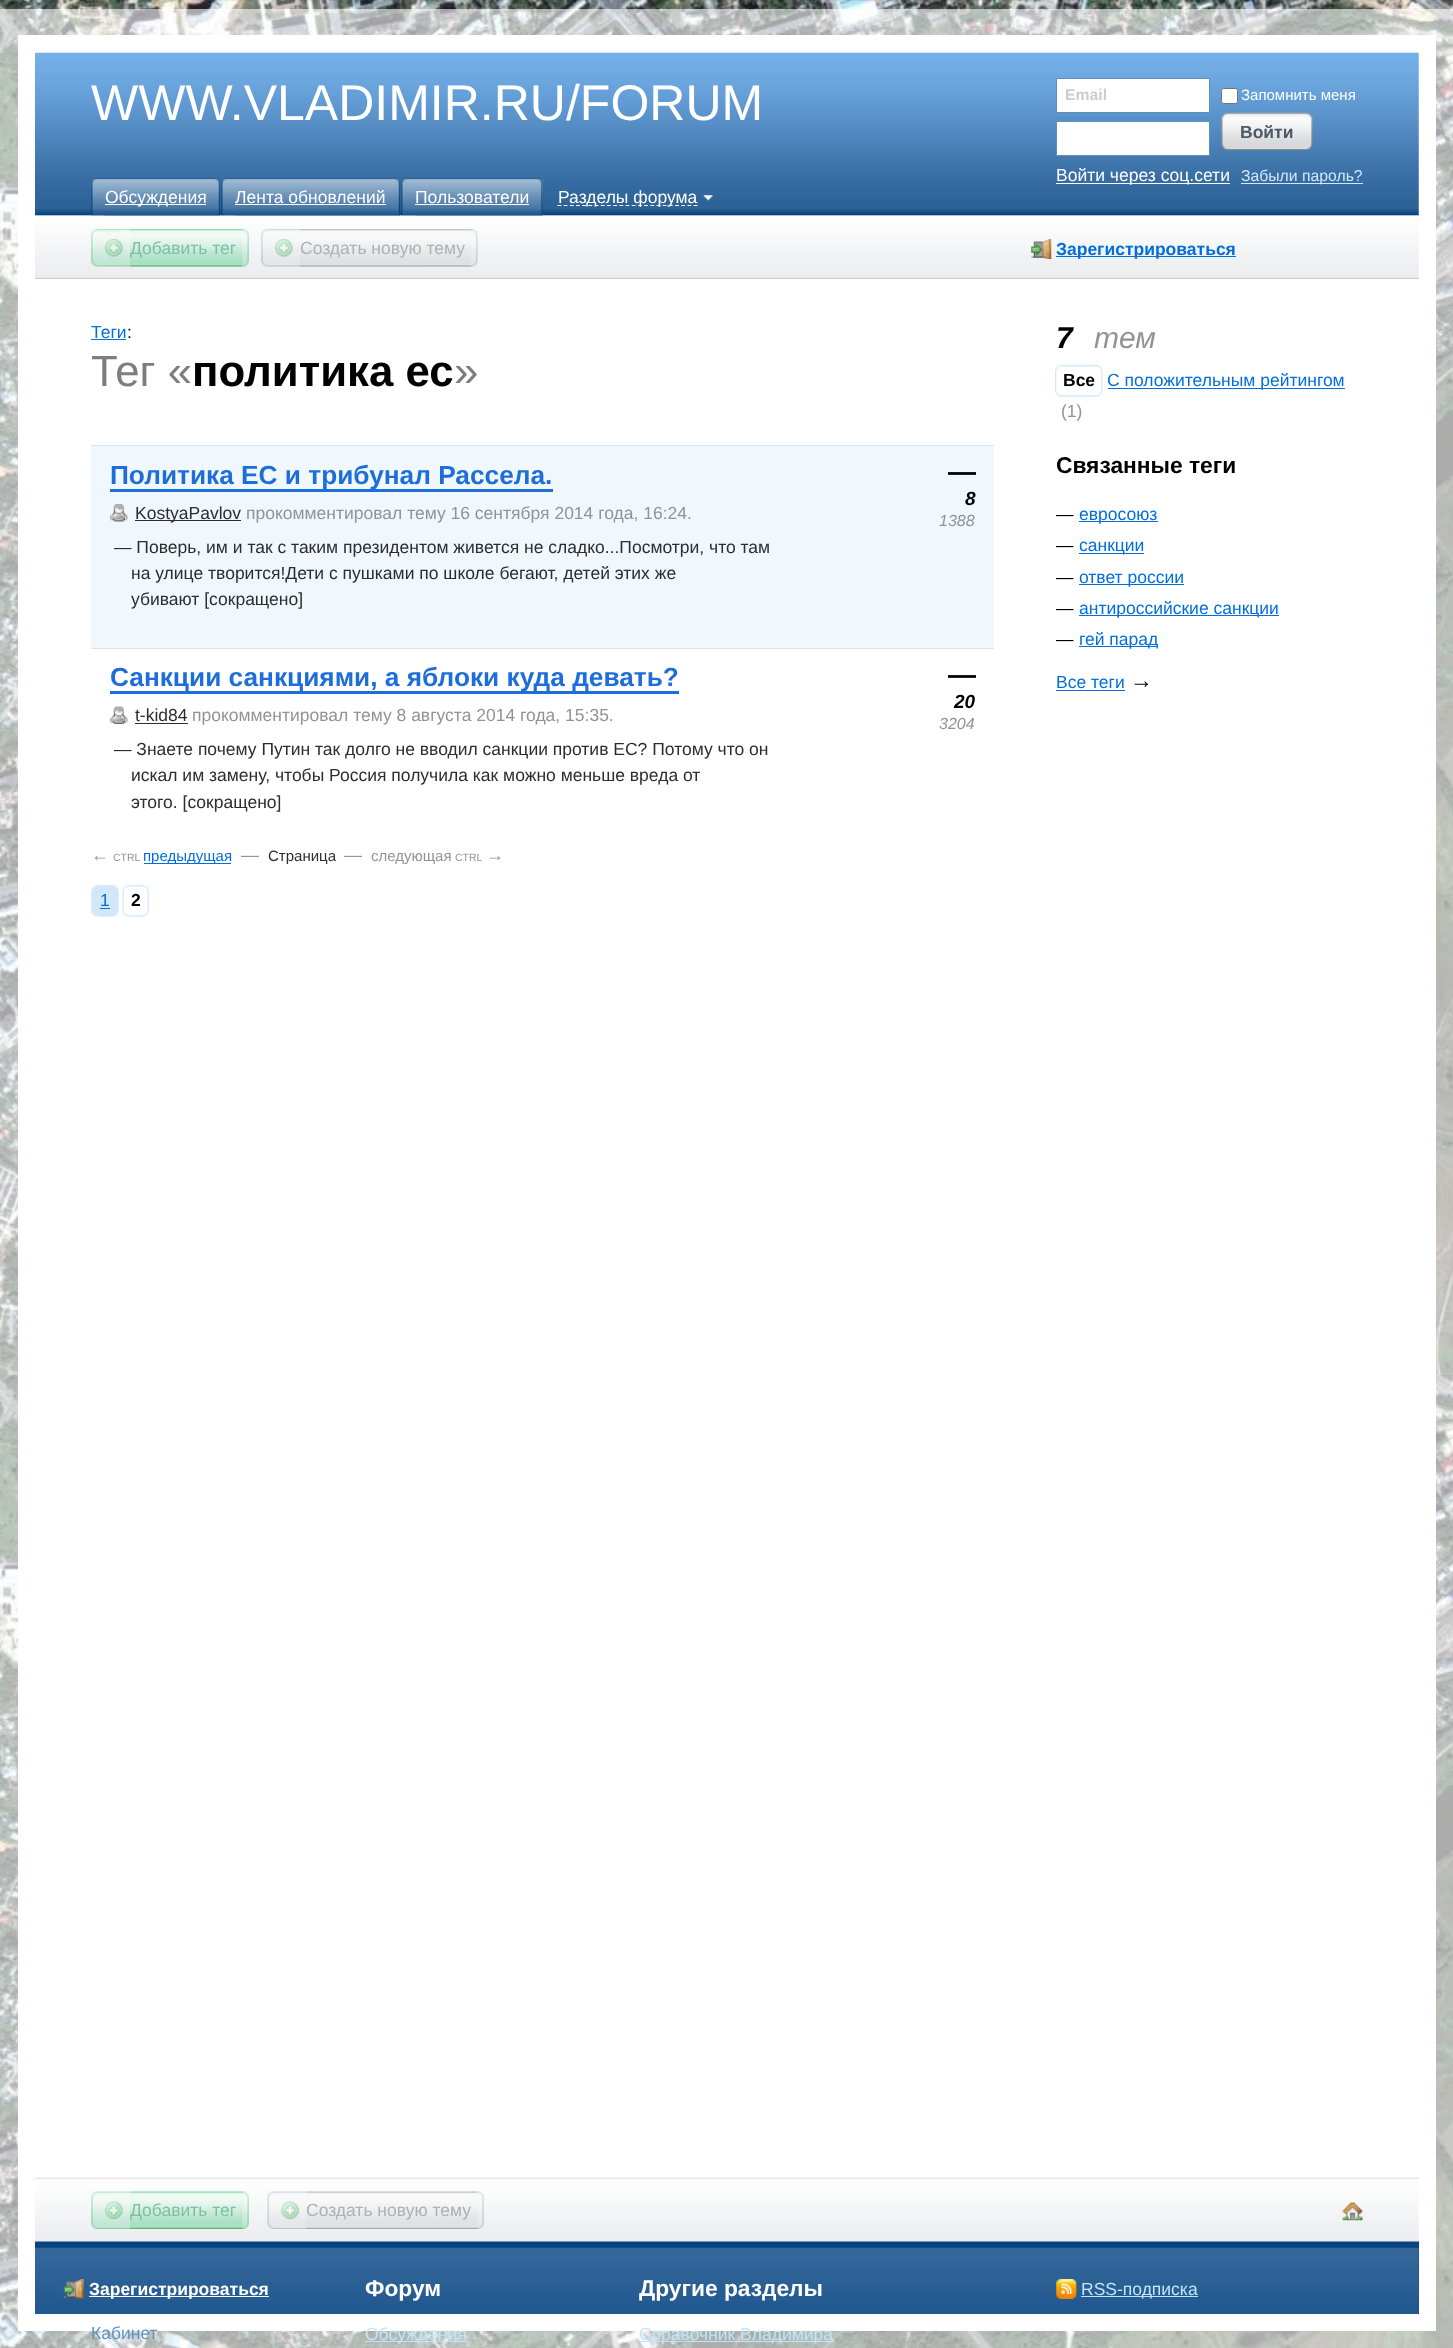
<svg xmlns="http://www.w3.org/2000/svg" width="1453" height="2348">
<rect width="100%" height="100%" fill="#fff"/>
<image x="0" y="0" width="1453" height="2348" href="media/1.png"/>
<rect x="18" y="35" width="1418" height="2296" fill="#fff"/>
<image x="35" y="52" width="1384" height="227" href="media/2.png"/>
<text x="91" y="120" style="font-family:Liberation Sans;font-size:50px;fill:#fff">WWW.VLADIMIR.RU/FORUM</text>
<rect x="1056.5" y="78.5" width="153" height="34" fill="#fff" stroke="#5b91bc"/>
<text x="1065" y="100" style="font-family:Liberation Sans;font-size:15.75px;font-weight:bold;fill:#ccc">Email</text>
<rect x="1221.5" y="88.5" width="16" height="15" rx="2" fill="#fff" stroke="#767676"/>
<text x="1241" y="100" style="font-family:Liberation Sans;font-size:15px;fill:#fff">Запомнить меня</text>
<rect x="1056.5" y="121.5" width="153" height="34" fill="#fff" stroke="#5b91bc"/>
<image x="1221" y="112" width="86" height="39" href="media/3.png"/>
<image x="1234" y="112" width="79" height="39" href="media/4.png"/>
<text x="1240" y="138" style="font-family:Liberation Sans;font-size:17.5px;font-weight:bold;fill:#4e5967">Войти</text>
<rect x="1056" y="183" width="174" height="1" fill="#fff"/>
<text x="1056" y="181" style="font-family:Liberation Sans;font-size:17.5px;fill:#fff">Войти через соц.сети</text>
<rect x="1241" y="183" width="122" height="1" fill="#d2e7fa"/>
<text x="1241" y="181" style="font-family:Liberation Sans;font-size:15.75px;fill:#d2e7fa">Забыли пароль?</text>
<image x="91" y="177" width="129" height="39" href="media/5.png"/>
<image x="105" y="178" width="115" height="38" href="media/6.png"/>
<rect x="105" y="204" width="101" height="1" fill="#fff"/>
<text x="105" y="203" style="font-family:Liberation Sans;font-size:17.5px;fill:#fff">Обсуждения</text>
<image x="221" y="177" width="179" height="39" href="media/7.png"/>
<image x="235" y="178" width="165" height="38" href="media/8.png"/>
<text x="235" y="203" style="font-family:Liberation Sans;font-size:17.5px;fill:#fff">Лента обновлений</text>
<rect x="235" y="204" width="151" height="1" fill="#fff"/>
<image x="401" y="177" width="142" height="39" href="media/9.png"/>
<image x="415" y="178" width="128" height="38" href="media/10.png"/>
<text x="415" y="203" style="font-family:Liberation Sans;font-size:17.5px;fill:#fff">Пользователи</text>
<rect x="415" y="204" width="114" height="1" fill="#fff"/>
<image x="703" y="195" width="10" height="6" href="media/11.png"/>
<path d="M557.5 205.5h140" fill="none" stroke="#fff" stroke-width="1.2" stroke-dasharray="3.75 2.44"/>
<text x="558" y="203" style="font-family:Liberation Sans;font-size:17.5px;fill:#fff">Разделы форума</text>
<image x="91" y="229" width="152" height="38" href="media/12.png"/>
<image x="105" y="239" width="18" height="18" href="media/13.png"/>
<image x="130" y="229" width="119" height="38" href="media/14.png"/>
<text x="130" y="254" style="font-family:Liberation Sans;font-size:17.5px;fill:#7ebea3">Добавить тег</text>
<image x="261" y="229" width="211" height="38" href="media/15.png"/>
<image x="275" y="239" width="18" height="18" href="media/16.png"/>
<image x="300" y="229" width="178" height="38" href="media/17.png"/>
<text x="300" y="254" style="font-family:Liberation Sans;font-size:17.5px;fill:#acb1b7">Создать новую тему</text>
<image x="1031" y="239" width="21" height="20" href="media/18.png"/>
<rect x="1056" y="256" width="180" height="1" fill="#006edb"/>
<text x="1056" y="255" style="font-family:Liberation Sans;font-size:17.5px;font-weight:bold;fill:#006edb">Зарегистрироваться</text>
<text x="91" y="338" style="font-family:Liberation Sans;font-size:17.5px;fill:#006edb">Теги</text>
<rect x="91" y="339" width="35" height="1" fill="#006edb"/>
<text x="127" y="338" style="font-family:Liberation Sans;font-size:17.5px;fill:#000">:</text>
<text x="91" y="386" style="font-family:Liberation Sans;font-size:43.75px;fill:#7d7d7d">Тег «</text>
<text x="192" y="386" style="font-family:Liberation Sans;font-size:43.75px;font-weight:bold;fill:#000">политика ес</text>
<text x="454" y="386" style="font-family:Liberation Sans;font-size:43.75px;fill:#7d7d7d">»</text>
<rect x="91" y="446" width="903" height="202" fill="#f0f7fd"/>
<rect x="91" y="445" width="903" height="1" fill="#d2e7fa"/>
<rect x="91" y="648" width="903" height="1" fill="#d2e7fa"/>
<rect x="110" y="489" width="443" height="3" fill="#1d6edb"/>
<text x="110" y="484" style="font-family:Liberation Sans;font-size:26.25px;font-weight:bold;fill:#1d6edb">Политика ЕС и трибунал Рассела.</text>
<image x="110" y="504" width="18" height="18" href="media/19.png"/>
<rect x="135" y="520" width="106" height="1" fill="#2d2d2d"/>
<text x="135" y="519" style="font-family:Liberation Sans;font-size:17.5px;fill:#2d2d2d">KostyaPavlov</text>
<text x="246" y="519" style="font-family:Liberation Sans;font-size:17.5px;fill:#939393">прокомментировал тему 16 сентября 2014 года, 16:24.</text>
<text x="114" y="553" style="font-family:Liberation Sans;font-size:17.5px;fill:#2d2d2d">— Поверь, им и так с таким президентом живется не сладко...Посмотри, что там</text>
<text x="131" y="579" style="font-family:Liberation Sans;font-size:17.5px;fill:#2d2d2d">на улице творится!Дети с пушками по школе бегают, детей этих же</text>
<text x="131" y="605" style="font-family:Liberation Sans;font-size:17.5px;fill:#2d2d2d">убивают [сокращено]</text>
<text x="948" y="481" style="font-family:Liberation Sans;font-size:28px;font-weight:bold;fill:#000">—</text>
<text x="965" y="505" style="font-family:Liberation Sans;font-size:19px;font-weight:bold;font-style:italic;fill:#000">8</text>
<text x="939" y="526" style="font-family:Liberation Sans;font-size:16px;font-style:italic;fill:#939393">1388</text>
<rect x="110" y="691" width="569" height="3" fill="#1d6edb"/>
<text x="110" y="686" style="font-family:Liberation Sans;font-size:26.25px;font-weight:bold;fill:#1d6edb">Санкции санкциями, а яблоки куда девать?</text>
<image x="110" y="706" width="18" height="18" href="media/20.png"/>
<text x="135" y="721" style="font-family:Liberation Sans;font-size:17.5px;fill:#2d2d2d">t-kid84</text>
<rect x="135" y="723" width="53" height="1" fill="#2d2d2d"/>
<text x="192" y="721" style="font-family:Liberation Sans;font-size:17.5px;fill:#939393">прокомментировал тему 8 августа 2014 года, 15:35.</text>
<text x="114" y="755" style="font-family:Liberation Sans;font-size:17.5px;fill:#2d2d2d">— Знаете почему Путин так долго не вводил санкции против ЕС? Потому что он</text>
<text x="131" y="781" style="font-family:Liberation Sans;font-size:17.5px;fill:#2d2d2d">искал им замену, чтобы Россия получила как можно меньше вреда от</text>
<text x="131" y="808" style="font-family:Liberation Sans;font-size:17.5px;fill:#2d2d2d">этого. [сокращено]</text>
<text x="948" y="684" style="font-family:Liberation Sans;font-size:28px;font-weight:bold;fill:#000">—</text>
<text x="954" y="708" style="font-family:Liberation Sans;font-size:19px;font-weight:bold;font-style:italic;fill:#000">20</text>
<text x="939" y="729" style="font-family:Liberation Sans;font-size:16px;font-style:italic;fill:#939393">3204</text>
<text x="91" y="861" style="font-family:Liberation Sans;font-size:18px;fill:#939393">←</text>
<text x="113" y="861" style="font-family:Liberation Sans;font-size:10.5px;fill:#939393">CTRL</text>
<rect x="144" y="863" width="87" height="1" fill="#006edb"/>
<text x="143" y="861" style="font-family:Liberation Sans;font-size:15px;fill:#006edb">предыдущая</text>
<text x="241" y="861" style="font-family:Liberation Sans;font-size:18px;fill:#939393">—</text>
<text x="268" y="861" style="font-family:Liberation Sans;font-size:15px;fill:#2d2d2d">Страница</text>
<text x="344" y="861" style="font-family:Liberation Sans;font-size:18px;fill:#939393">—</text>
<text x="371" y="861" style="font-family:Liberation Sans;font-size:15px;fill:#939393">следующая</text>
<text x="455" y="861" style="font-family:Liberation Sans;font-size:10.5px;fill:#939393">CTRL</text>
<text x="486" y="861" style="font-family:Liberation Sans;font-size:18px;fill:#939393">→</text>
<image x="91" y="885" width="23" height="32" href="media/21.png"/>
<image x="100" y="885" width="19" height="32" href="media/22.png"/>
<text x="100" y="906" style="font-family:Liberation Sans;font-size:17.5px;fill:#006edb">1</text>
<rect x="100" y="908" width="10" height="1" fill="#006edb"/>
<image x="122" y="885" width="22" height="32" href="media/23.png"/>
<image x="131" y="885" width="18" height="32" href="media/24.png"/>
<text x="131" y="906" style="font-family:Liberation Sans;font-size:17.5px;font-weight:bold;fill:#000">2</text>
<text x="1056" y="348" style="font-family:Liberation Sans;font-size:30px;font-weight:bold;font-style:italic;fill:#000">7</text>
<text x="1094" y="348" style="font-family:Liberation Sans;font-size:30px;font-style:italic;fill:#939393">тем</text>
<image x="1055" y="365" width="44" height="32" href="media/25.png"/>
<image x="1058" y="365" width="45" height="32" href="media/26.png"/>
<text x="1063" y="386" style="font-family:Liberation Sans;font-size:17.5px;font-weight:bold;fill:#000">Все</text>
<rect x="1108" y="388" width="237" height="1" fill="#006edb"/>
<text x="1107" y="386" style="font-family:Liberation Sans;font-size:17.5px;fill:#006edb">C положительным рейтингом</text>
<text x="1061" y="417" style="font-family:Liberation Sans;font-size:17.5px;fill:#939393">(1)</text>
<text x="1056" y="473" style="font-family:Liberation Sans;font-size:22.75px;font-weight:bold;fill:#000">Связанные теги</text>
<text x="1056" y="520" style="font-family:Liberation Sans;font-size:17.5px;fill:#000">—</text>
<rect x="1079" y="521" width="79" height="1" fill="#006edb"/>
<text x="1079" y="520" style="font-family:Liberation Sans;font-size:17.5px;fill:#006edb">евросоюз</text>
<text x="1056" y="551" style="font-family:Liberation Sans;font-size:17.5px;fill:#000">—</text>
<rect x="1079" y="553" width="65" height="1" fill="#006edb"/>
<text x="1079" y="551" style="font-family:Liberation Sans;font-size:17.5px;fill:#006edb">санкции</text>
<text x="1056" y="583" style="font-family:Liberation Sans;font-size:17.5px;fill:#000">—</text>
<rect x="1079" y="584" width="105" height="1" fill="#006edb"/>
<text x="1079" y="583" style="font-family:Liberation Sans;font-size:17.5px;fill:#006edb">ответ россии</text>
<text x="1056" y="614" style="font-family:Liberation Sans;font-size:17.5px;fill:#000">—</text>
<rect x="1079" y="615" width="200" height="1" fill="#006edb"/>
<text x="1079" y="614" style="font-family:Liberation Sans;font-size:17.5px;fill:#006edb">антироссийские санкции</text>
<text x="1056" y="645" style="font-family:Liberation Sans;font-size:17.5px;fill:#000">—</text>
<rect x="1079" y="646" width="79" height="1" fill="#006edb"/>
<text x="1079" y="645" style="font-family:Liberation Sans;font-size:17.5px;fill:#006edb">гей парад</text>
<text x="1056" y="688" style="font-family:Liberation Sans;font-size:17.5px;fill:#006edb">Все теги</text>
<rect x="1056" y="690" width="69" height="1" fill="#006edb"/>
<text x="1130" y="688" style="font-family:Liberation Sans;font-size:22.75px;font-weight:bold;fill:#000">→</text>
<rect x="35" y="2241" width="1384" height="73" fill="#064482"/>
<image x="35" y="2177" width="1384" height="65" href="media/27.png"/>
<image x="91" y="2191" width="152" height="38" href="media/28.png"/>
<image x="105" y="2201" width="18" height="18" href="media/29.png"/>
<image x="130" y="2191" width="119" height="38" href="media/30.png"/>
<text x="130" y="2216" style="font-family:Liberation Sans;font-size:17.5px;fill:#7ebea3">Добавить тег</text>
<image x="267" y="2191" width="211" height="38" href="media/31.png"/>
<image x="281" y="2201" width="18" height="18" href="media/32.png"/>
<image x="306" y="2191" width="178" height="38" href="media/33.png"/>
<text x="306" y="2216" style="font-family:Liberation Sans;font-size:17.5px;fill:#acb1b7">Создать новую тему</text>
<image x="1342" y="2201" width="21" height="20" href="media/34.png"/>
<image x="35" y="2247" width="1384" height="67" href="media/35.png"/>
<image x="63" y="2279" width="21" height="20" href="media/36.png"/>
<rect x="89" y="2296" width="180" height="1" fill="#fff"/>
<text x="89" y="2295" style="font-family:Liberation Sans;font-size:17.5px;font-weight:bold;fill:#fff">Зарегистрироваться</text>
<text x="91" y="2339" style="font-family:Liberation Sans;font-size:17.5px;fill:#6394bf">Кабинет</text>
<text x="365" y="2296" style="font-family:Liberation Sans;font-size:22.75px;font-weight:bold;fill:#fff">Форум</text>
<rect x="365" y="2341" width="103" height="1" fill="#c0e4fb"/>
<text x="365" y="2340" style="font-family:Liberation Sans;font-size:17.5px;fill:#c0e4fb">Обсуждения</text>
<text x="639" y="2296" style="font-family:Liberation Sans;font-size:22.75px;font-weight:bold;fill:#fff">Другие разделы</text>
<rect x="639" y="2341" width="195" height="1" fill="#c0e4fb"/>
<text x="639" y="2340" style="font-family:Liberation Sans;font-size:17.5px;fill:#c0e4fb">Справочник Владимира</text>
<image x="1056" y="2279" width="21" height="20" href="media/37.png"/>
<rect x="1081" y="2296" width="117" height="1" fill="#c0e4fb"/>
<text x="1081" y="2295" style="font-family:Liberation Sans;font-size:17.5px;fill:#c0e4fb">RSS-подписка</text>
</svg>
